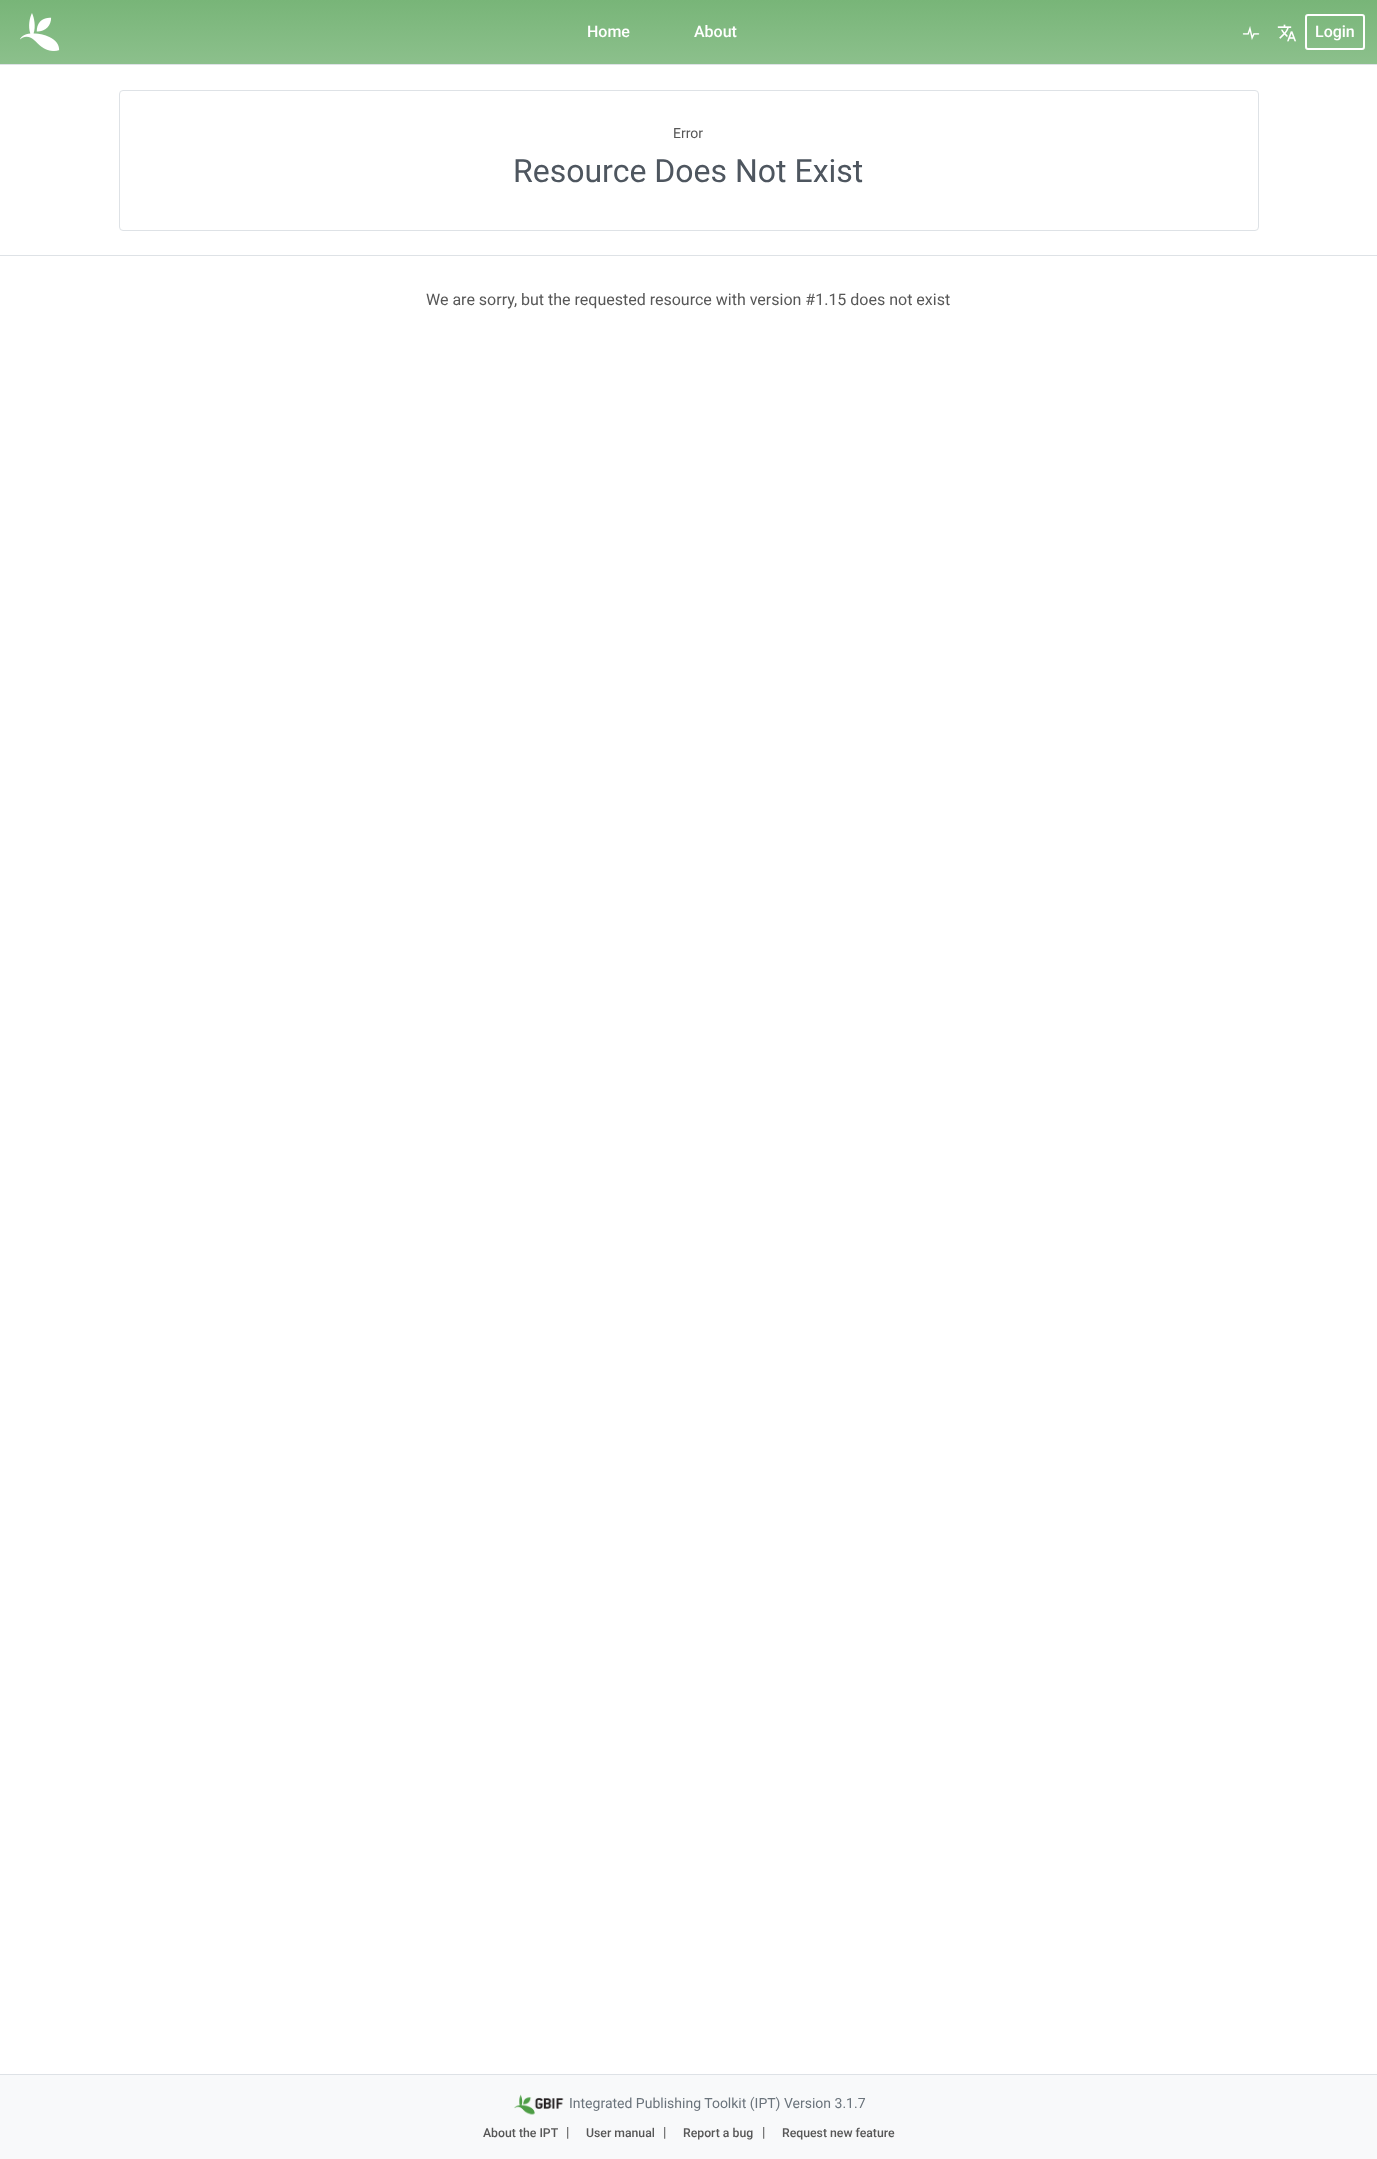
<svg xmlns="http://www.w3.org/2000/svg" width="1377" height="2159">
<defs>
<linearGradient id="g1" gradientUnits="userSpaceOnUse" x1="689" y1="0" x2="689" y2="64"><stop offset="0" stop-color="#78b578"/><stop offset="1" stop-color="#8cc08c"/></linearGradient>
</defs>
<rect width="100%" height="100%" fill="#fff"/>
<rect width="1377" height="64" fill="url(#g1)"/>
<rect y="64" width="1377" height="1" fill="#dee2e6"/>
<image x="20" y="13" width="40" height="38" href="media/1.png"/>
<text x="587" y="37" style="font-family:Roboto;font-size:16px;font-weight:500;fill:#fff">Home</text>
<text x="694" y="37" style="font-family:Roboto;font-size:16px;font-weight:500;fill:#fff">About</text>
<image x="1242" y="26" width="18" height="14" href="media/2.png"/>
<image x="1277" y="24" width="20" height="18" href="media/3.png"/>
<rect x="1306" y="15" width="58" height="34" rx="2" fill="none" stroke="#fff" stroke-width="2"/>
<text x="1315" y="37" style="font-family:Roboto;font-size:16px;font-weight:500;fill:#fff">Login</text>
<rect y="255" width="1377" height="1" fill="#dee2e6"/>
<rect x="119.5" y="90.5" width="1139" height="140" rx="3.5" fill="none" stroke="#dee2e6"/>
<text x="673" y="138" style="font-family:Roboto;font-size:14px;fill:#575757">Error</text>
<text x="513" y="182" style="font-family:Roboto;font-size:32px;fill:#4e565f">Resource Does Not Exist</text>
<text x="426" y="305" style="font-family:Roboto;font-size:16px;fill:#575757">We are sorry, but the requested resource with version #1.15 does not exist</text>
<rect y="2075" width="1377" height="84" fill="#f8f9fa"/>
<rect y="2074" width="1377" height="1" fill="#dee2e6"/>
<image x="514" y="2094" width="50" height="21" href="media/4.png"/>
<text x="569" y="2108" style="font-family:Roboto;font-size:14px;fill:#6b747c">Integrated Publishing Toolkit (IPT) Version 3.1.7</text>
<text x="483" y="2137" style="font-family:Roboto;font-size:12.25px;font-weight:500;fill:#575757">About the IPT</text>
<text x="566" y="2137" style="font-family:Roboto;font-size:14px;fill:#575757">|</text>
<text x="586" y="2137" style="font-family:Roboto;font-size:12.25px;font-weight:500;fill:#575757">User manual</text>
<text x="663" y="2137" style="font-family:Roboto;font-size:14px;fill:#575757">|</text>
<text x="683" y="2137" style="font-family:Roboto;font-size:12.25px;font-weight:500;fill:#575757">Report a bug</text>
<text x="762" y="2137" style="font-family:Roboto;font-size:14px;fill:#575757">|</text>
<text x="782" y="2137" style="font-family:Roboto;font-size:12.25px;font-weight:500;fill:#575757">Request new feature</text>
</svg>
